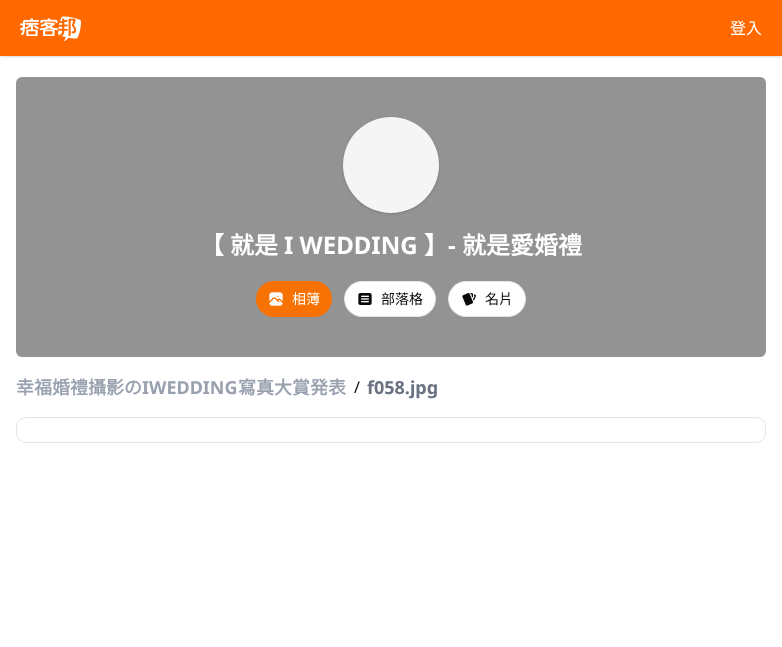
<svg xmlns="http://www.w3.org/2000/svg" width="782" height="647">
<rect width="100%" height="100%" fill="#fff"/>
<rect x="1" y="2" width="780" height="54" fill="#0000001a" filter="blur(1px)"/>
<rect y="1" width="782" height="56" fill="#0000001a" filter="blur(1.5px)"/>
<rect width="782" height="56" fill="#ff6900"/>
<image x="20" y="16" width="61" height="25" href="media/1.png"/>
<text x="730" y="34" style="font-family:Noto Sans CJK TC;font-size:16px;fill:#fff">登入</text>
<rect x="16" y="77" width="750" height="280" rx="6" fill="#939393"/>
<rect x="344" y="119" width="94" height="94" rx="47" fill="#0000001a" filter="blur(1px)"/>
<rect x="343" y="118" width="96" height="96" rx="48" fill="#0000001a" filter="blur(1.5px)"/>
<circle cx="391" cy="165" r="48" fill="#f5f5f5"/>
<text x="200" y="254" style="font-family:Noto Sans CJK TC;font-size:24px;font-weight:bold;fill:#fff">【</text>
<text x="230" y="254" style="font-family:Noto Sans CJK TC;font-size:24px;font-weight:bold;fill:#fff">就是</text>
<text x="284" y="254" style="font-family:Noto Sans;font-size:24px;font-weight:bold;fill:#fff">I WEDDING</text>
<text x="424" y="254" style="font-family:Noto Sans CJK TC;font-size:24px;font-weight:bold;fill:#fff">】</text>
<text x="448" y="254" style="font-family:Noto Sans;font-size:24px;font-weight:bold;fill:#fff">-</text>
<text x="462" y="254" style="font-family:Noto Sans CJK TC;font-size:24px;font-weight:bold;fill:#fff">就是愛婚禮</text>
<rect x="256" y="281" width="76" height="36" rx="18" fill="#f87103"/>
<image x="269" y="292" width="14" height="14" href="media/2.png"/>
<text x="292" y="304" style="font-family:Noto Sans CJK TC;font-size:14px;fill:#fff">相簿</text>
<rect x="344.5" y="281.5" width="91" height="35" rx="17.5" fill="#fff" stroke="#e5e5e5"/>
<image x="358" y="293" width="14" height="12" href="media/3.png"/>
<text x="381" y="304" style="font-family:Noto Sans CJK TC;font-size:14px;fill:#0a0a0a">部落格</text>
<rect x="448.5" y="281.5" width="77" height="35" rx="17.5" fill="#fff" stroke="#e5e5e5"/>
<image x="462" y="293" width="14" height="13" href="media/4.png"/>
<text x="485" y="304" style="font-family:Noto Sans CJK TC;font-size:14px;fill:#0a0a0a">名片</text>
<text x="16" y="394" style="font-family:Noto Sans CJK TC;font-size:18px;font-weight:bold;fill:#99a1af">幸福婚禮攝影の</text>
<text x="142" y="394" style="font-family:Noto Sans;font-size:18px;font-weight:bold;fill:#99a1af">IWEDDING</text>
<text x="238" y="394" style="font-family:Noto Sans CJK TC;font-size:18px;font-weight:bold;fill:#99a1af">寫真大賞発表</text>
<text x="354" y="393" style="font-family:Noto Sans;font-size:16px;fill:#0a0a0a">/</text>
<text x="367" y="394" style="font-family:Noto Sans;font-size:18px;font-weight:bold;fill:#6a7282">f058.jpg</text>
<rect x="16.5" y="417.5" width="749" height="25" rx="9.5" fill="none" stroke="#e5e5e5"/>
</svg>
